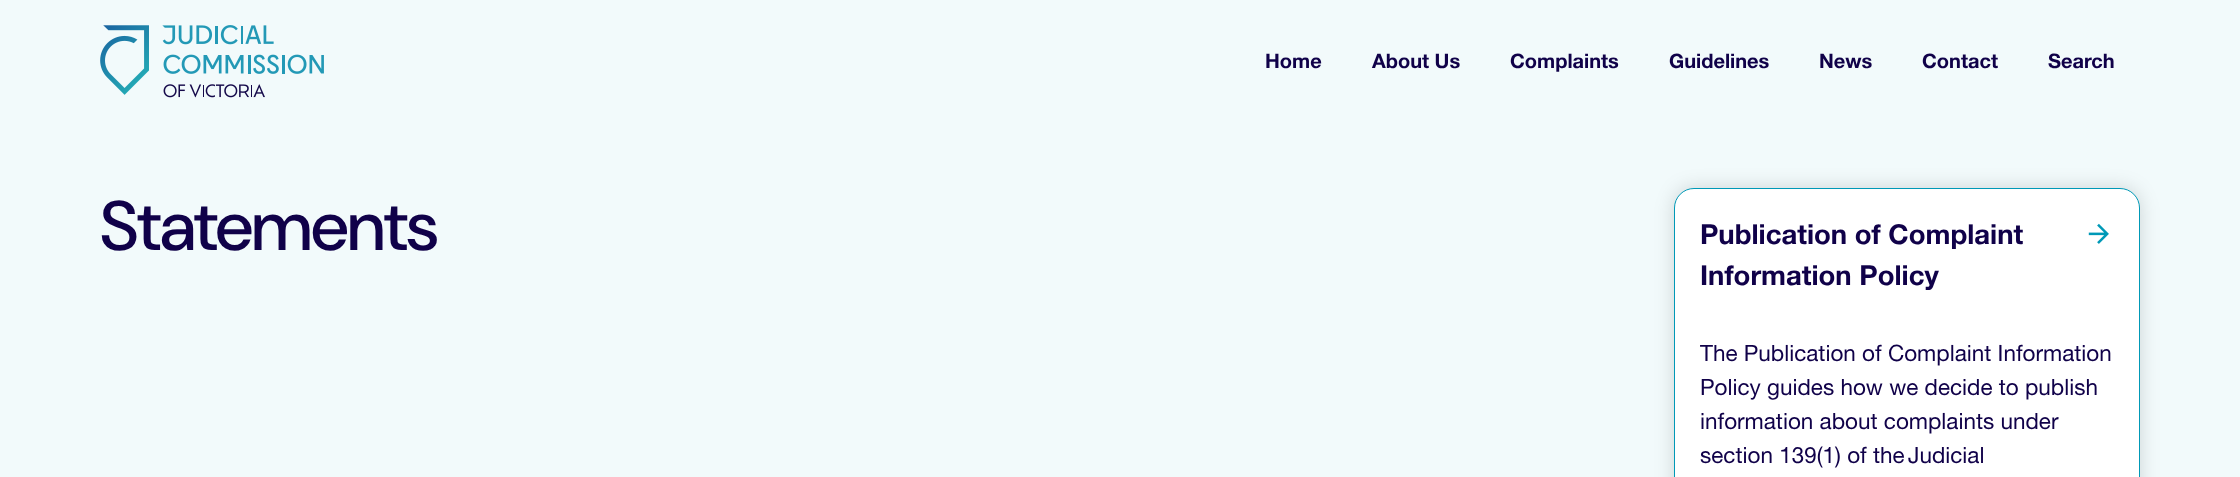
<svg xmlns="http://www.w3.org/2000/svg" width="2240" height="477">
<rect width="100%" height="100%" fill="#f2fafb"/>
<image x="100" y="25" width="224" height="73" href="media/1.png"/>
<text x="1265" y="68" style="font-family:Helvetica Neue;font-size:20px;font-weight:bold;fill:#100149">Home</text>
<text x="1372" y="68" style="font-family:Helvetica Neue;font-size:20px;font-weight:bold;fill:#100149">About Us</text>
<text x="1510" y="68" style="font-family:Helvetica Neue;font-size:20px;font-weight:bold;fill:#100149">Complaints</text>
<text x="1669" y="68" style="font-family:Helvetica Neue;font-size:20px;font-weight:bold;fill:#100149">Guidelines</text>
<text x="1819" y="68" style="font-family:Helvetica Neue;font-size:20px;font-weight:bold;fill:#100149">News</text>
<text x="1922" y="68" style="font-family:Helvetica Neue;font-size:20px;font-weight:bold;fill:#100149">Contact</text>
<text x="2048" y="68" style="font-family:Helvetica Neue;font-size:20px;font-weight:bold;fill:#100149">Search</text>
<text x="100" y="250" style="font-family:DM Sans;font-size:70px;font-weight:500;letter-spacing:-1px;fill:#100149">Statements</text>
<rect x="1674" y="188" width="466" height="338" rx="20" fill="#00000026" filter="blur(9.5px)"/>
<rect x="1674.5" y="188.5" width="465" height="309" rx="19.5" fill="#fff" stroke="#0099b7"/>
<text x="1700" y="244" style="font-family:Helvetica Neue;font-size:27.5px;font-weight:bold;fill:#100149">Publication of Complaint</text>
<image x="2088" y="223" width="21" height="21" href="media/2.png"/>
<text x="1700" y="285" style="font-family:Helvetica Neue;font-size:27.5px;font-weight:bold;fill:#100149">Information Policy</text>
<text x="1700" y="361" style="font-family:Helvetica Neue;font-size:22.5px;fill:#100149">The Publication of Complaint Information</text>
<text x="1700" y="395" style="font-family:Helvetica Neue;font-size:22.5px;fill:#100149">Policy guides how we decide to publish</text>
<text x="1700" y="429" style="font-family:Helvetica Neue;font-size:22.5px;fill:#100149">information about complaints under</text>
<text x="1700" y="463" style="font-family:Helvetica Neue;font-size:22.5px;fill:#100149">section 139(1) of the Judicial</text>
</svg>
